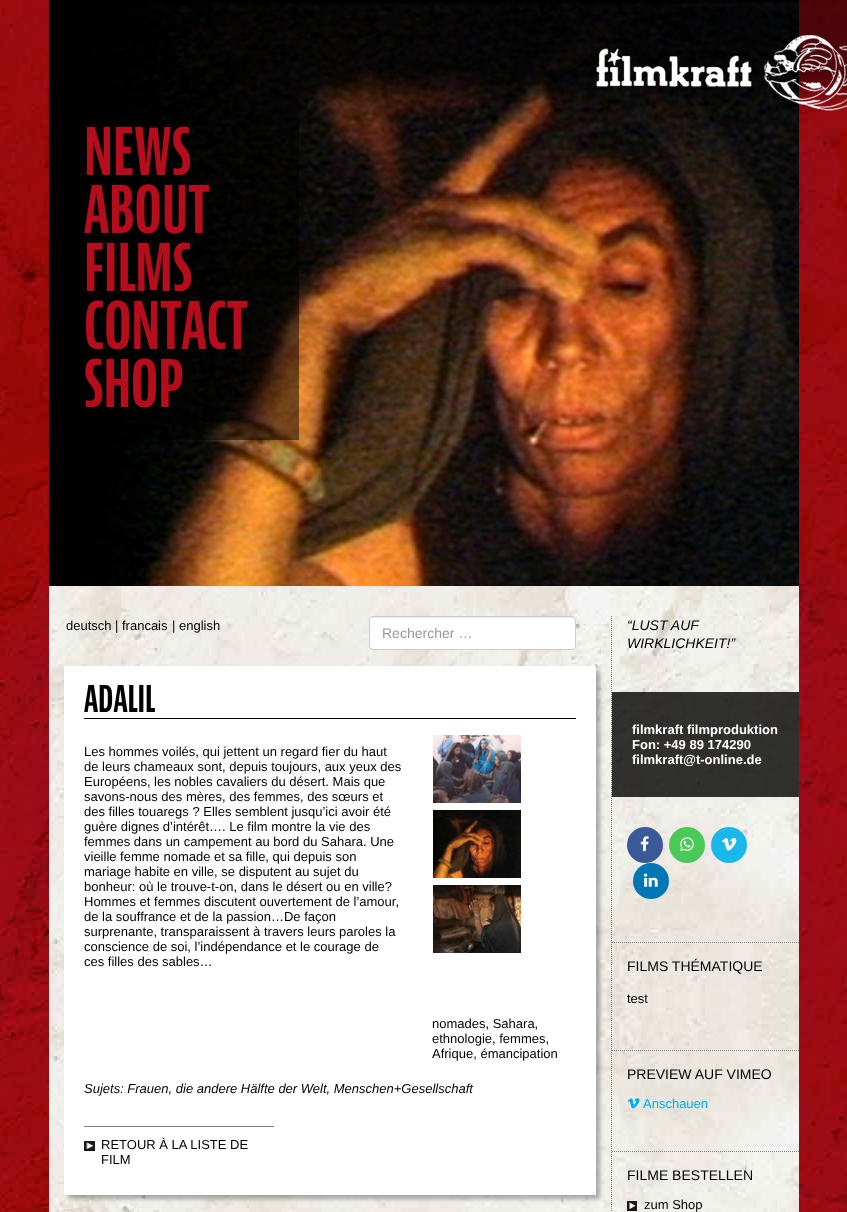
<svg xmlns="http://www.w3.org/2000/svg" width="847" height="1212">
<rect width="100%" height="100%" fill="#fff"/>
<image x="0" y="0" width="847" height="1212" href="media/1.png"/>
<image x="49" y="586" width="750" height="626" href="media/2.png"/>
<image x="49" y="0" width="750" height="586" href="media/3.png"/>
<image x="95" y="0" width="752" height="120" href="media/4.png"/>
<image x="596" y="35" width="251" height="76" href="media/5.png"/>
<rect x="97" y="120" width="202" height="320" fill="#00000080"/>
<text x="84" y="175" style="font-family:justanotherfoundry;font-size:64px;font-weight:bold;fill:#b50d1c">NEWS</text>
<text x="84" y="233" style="font-family:justanotherfoundry;font-size:64px;font-weight:bold;fill:#b50d1c">ABOUT</text>
<text x="84" y="291" style="font-family:justanotherfoundry;font-size:64px;font-weight:bold;fill:#b50d1c">FILMS</text>
<text x="84" y="349" style="font-family:justanotherfoundry;font-size:64px;font-weight:bold;fill:#b50d1c">CONTACT</text>
<text x="84" y="407" style="font-family:justanotherfoundry;font-size:64px;font-weight:bold;fill:#b50d1c">SHOP</text>
<text x="66" y="630" style="font-family:Liberation Sans;font-size:13px;fill:#000">deutsch</text>
<text x="115" y="630" style="font-family:Liberation Sans;font-size:13px;fill:#000">| francais</text>
<text x="172" y="630" style="font-family:Liberation Sans;font-size:13px;fill:#000">| english</text>
<rect x="369" y="616" width="207" height="34" rx="4" fill="#fff"/>
<path d="M373 618h199c2 0 3 1 3 3c0-2-1-4-3-4h-199c-2 0-3 2-3 4c0-2 1-3 3-3z" fill="#ececec"/>
<rect x="369.5" y="616.5" width="206" height="33" rx="3.5" fill="none" stroke="#ccc"/>
<text x="382" y="638" style="font-family:Liberation Sans;font-size:14px;fill:#999">Rechercher …</text>
<rect x="68" y="670" width="532" height="529" fill="#0000004d" filter="blur(2px)"/>
<rect x="64" y="666" width="532" height="529" fill="#fff"/>
<rect x="84" y="718" width="492" height="1" fill="#000"/>
<text x="84" y="712" style="font-family:justanotherfoundry;font-size:36px;font-weight:bold;fill:#000">ADALIL</text>
<text x="84" y="756" style="font-family:Liberation Sans;font-size:13px;fill:#000">Les hommes voilés, qui jettent un regard fier du haut</text>
<text x="84" y="771" style="font-family:Liberation Sans;font-size:13px;fill:#000">de leurs chameaux sont, depuis toujours, aux yeux des</text>
<text x="84" y="786" style="font-family:Liberation Sans;font-size:13px;fill:#000">Européens, les nobles cavaliers du désert. Mais que</text>
<text x="84" y="801" style="font-family:Liberation Sans;font-size:13px;fill:#000">savons-nous des mères, des femmes, des sœurs et</text>
<text x="84" y="816" style="font-family:Liberation Sans;font-size:13px;fill:#000">des filles touaregs ? Elles semblent jusqu’ici avoir été</text>
<text x="84" y="831" style="font-family:Liberation Sans;font-size:13px;fill:#000">guère dignes d’intérêt…. Le film montre la vie des</text>
<text x="84" y="846" style="font-family:Liberation Sans;font-size:13px;fill:#000">femmes dans un campement au bord du Sahara. Une</text>
<text x="84" y="861" style="font-family:Liberation Sans;font-size:13px;fill:#000">vieille femme nomade et sa fille, qui depuis son</text>
<text x="84" y="876" style="font-family:Liberation Sans;font-size:13px;fill:#000">mariage habite en ville, se disputent au sujet du</text>
<text x="84" y="891" style="font-family:Liberation Sans;font-size:13px;fill:#000">bonheur: où le trouve-t-on, dans le désert ou en ville?</text>
<text x="84" y="906" style="font-family:Liberation Sans;font-size:13px;fill:#000">Hommes et femmes discutent ouvertement de l’amour,</text>
<text x="84" y="921" style="font-family:Liberation Sans;font-size:13px;fill:#000">de la souffrance et de la passion…De façon</text>
<text x="84" y="936" style="font-family:Liberation Sans;font-size:13px;fill:#000">surprenante, transparaissent à travers leurs paroles la</text>
<text x="84" y="951" style="font-family:Liberation Sans;font-size:13px;fill:#000">conscience de soi, l’indépendance et le courage de</text>
<text x="84" y="966" style="font-family:Liberation Sans;font-size:13px;fill:#000">ces filles des sables…</text>
<image x="433" y="735" width="88" height="68" href="media/6.png"/>
<image x="433" y="810" width="88" height="68" href="media/7.png"/>
<image x="433" y="885" width="88" height="68" href="media/8.png"/>
<text x="432" y="1028" style="font-family:Liberation Sans;font-size:13px;fill:#000">nomades, Sahara,</text>
<text x="432" y="1043" style="font-family:Liberation Sans;font-size:13px;fill:#000">ethnologie, femmes,</text>
<text x="432" y="1058" style="font-family:Liberation Sans;font-size:13px;fill:#000">Afrique, émancipation</text>
<text x="84" y="1093" style="font-family:Liberation Sans;font-size:13px;font-style:italic;fill:#000">Sujets: Frauen, die andere Hälfte der Welt, Menschen+Gesellschaft</text>
<rect x="84" y="1126" width="190" height="1" fill="#808080"/>
<image x="84" y="1141" width="11" height="10" href="media/9.png"/>
<text x="101" y="1149" style="font-family:Liberation Sans;font-size:13px;fill:#000">RETOUR À LA LISTE DE</text>
<text x="101" y="1164" style="font-family:Liberation Sans;font-size:13px;fill:#000">FILM</text>
<path d="M611.5 616v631" fill="none" stroke="#808080" stroke-dasharray="1 1"/>
<text x="627" y="630" style="font-family:Liberation Sans;font-size:14px;font-style:italic;fill:#000">“LUST AUF</text>
<text x="627" y="648" style="font-family:Liberation Sans;font-size:14px;font-style:italic;fill:#000">WIRKLICHKEIT!”</text>
<rect x="612" y="692" width="187" height="105" fill="#000000cc"/>
<text x="632" y="734" style="font-family:Liberation Sans;font-size:13px;font-weight:bold;fill:#fff">filmkraft filmproduktion</text>
<text x="632" y="749" style="font-family:Liberation Sans;font-size:13px;font-weight:bold;fill:#fff">Fon: +49 89 174290</text>
<text x="632" y="764" style="font-family:Liberation Sans;font-size:13px;font-weight:bold;fill:#fff">filmkraft@t-online.de</text>
<circle cx="645" cy="845" r="18" fill="#3b5998"/>
<image x="640" y="836" width="9" height="16" href="media/10.png"/>
<circle cx="687" cy="845" r="18" fill="#4ac959"/>
<image x="680" y="837" width="14" height="15" href="media/11.png"/>
<circle cx="729" cy="845" r="18" fill="#19b7ea"/>
<image x="721" y="838" width="16" height="13" href="media/12.png"/>
<circle cx="651" cy="881" r="18" fill="#0077b5"/>
<image x="644" y="873" width="14" height="14" href="media/13.png"/>
<path d="M612 942.5h187" fill="none" stroke="#808080" stroke-dasharray="1 1"/>
<text x="627" y="971" style="font-family:Liberation Sans;font-size:14px;fill:#000">FILMS THÉMATIQUE</text>
<text x="627" y="1003" style="font-family:Liberation Sans;font-size:13px;fill:#000">test</text>
<path d="M612 1050.5h187" fill="none" stroke="#808080" stroke-dasharray="1 1"/>
<text x="627" y="1079" style="font-family:Liberation Sans;font-size:14px;fill:#000">PREVIEW AUF VIMEO</text>
<image x="627" y="1098" width="13" height="11" href="media/14.png"/>
<text x="643" y="1108" style="font-family:Liberation Sans;font-size:13px;fill:#00adef">Anschauen</text>
<path d="M612 1151.5h187" fill="none" stroke="#808080" stroke-dasharray="1 1"/>
<text x="627" y="1180" style="font-family:Liberation Sans;font-size:14px;fill:#000">FILME BESTELLEN</text>
<image x="627" y="1201" width="10" height="10" href="media/15.png"/>
<text x="644" y="1209" style="font-family:Liberation Sans;font-size:13px;fill:#000">zum Shop</text>
</svg>
